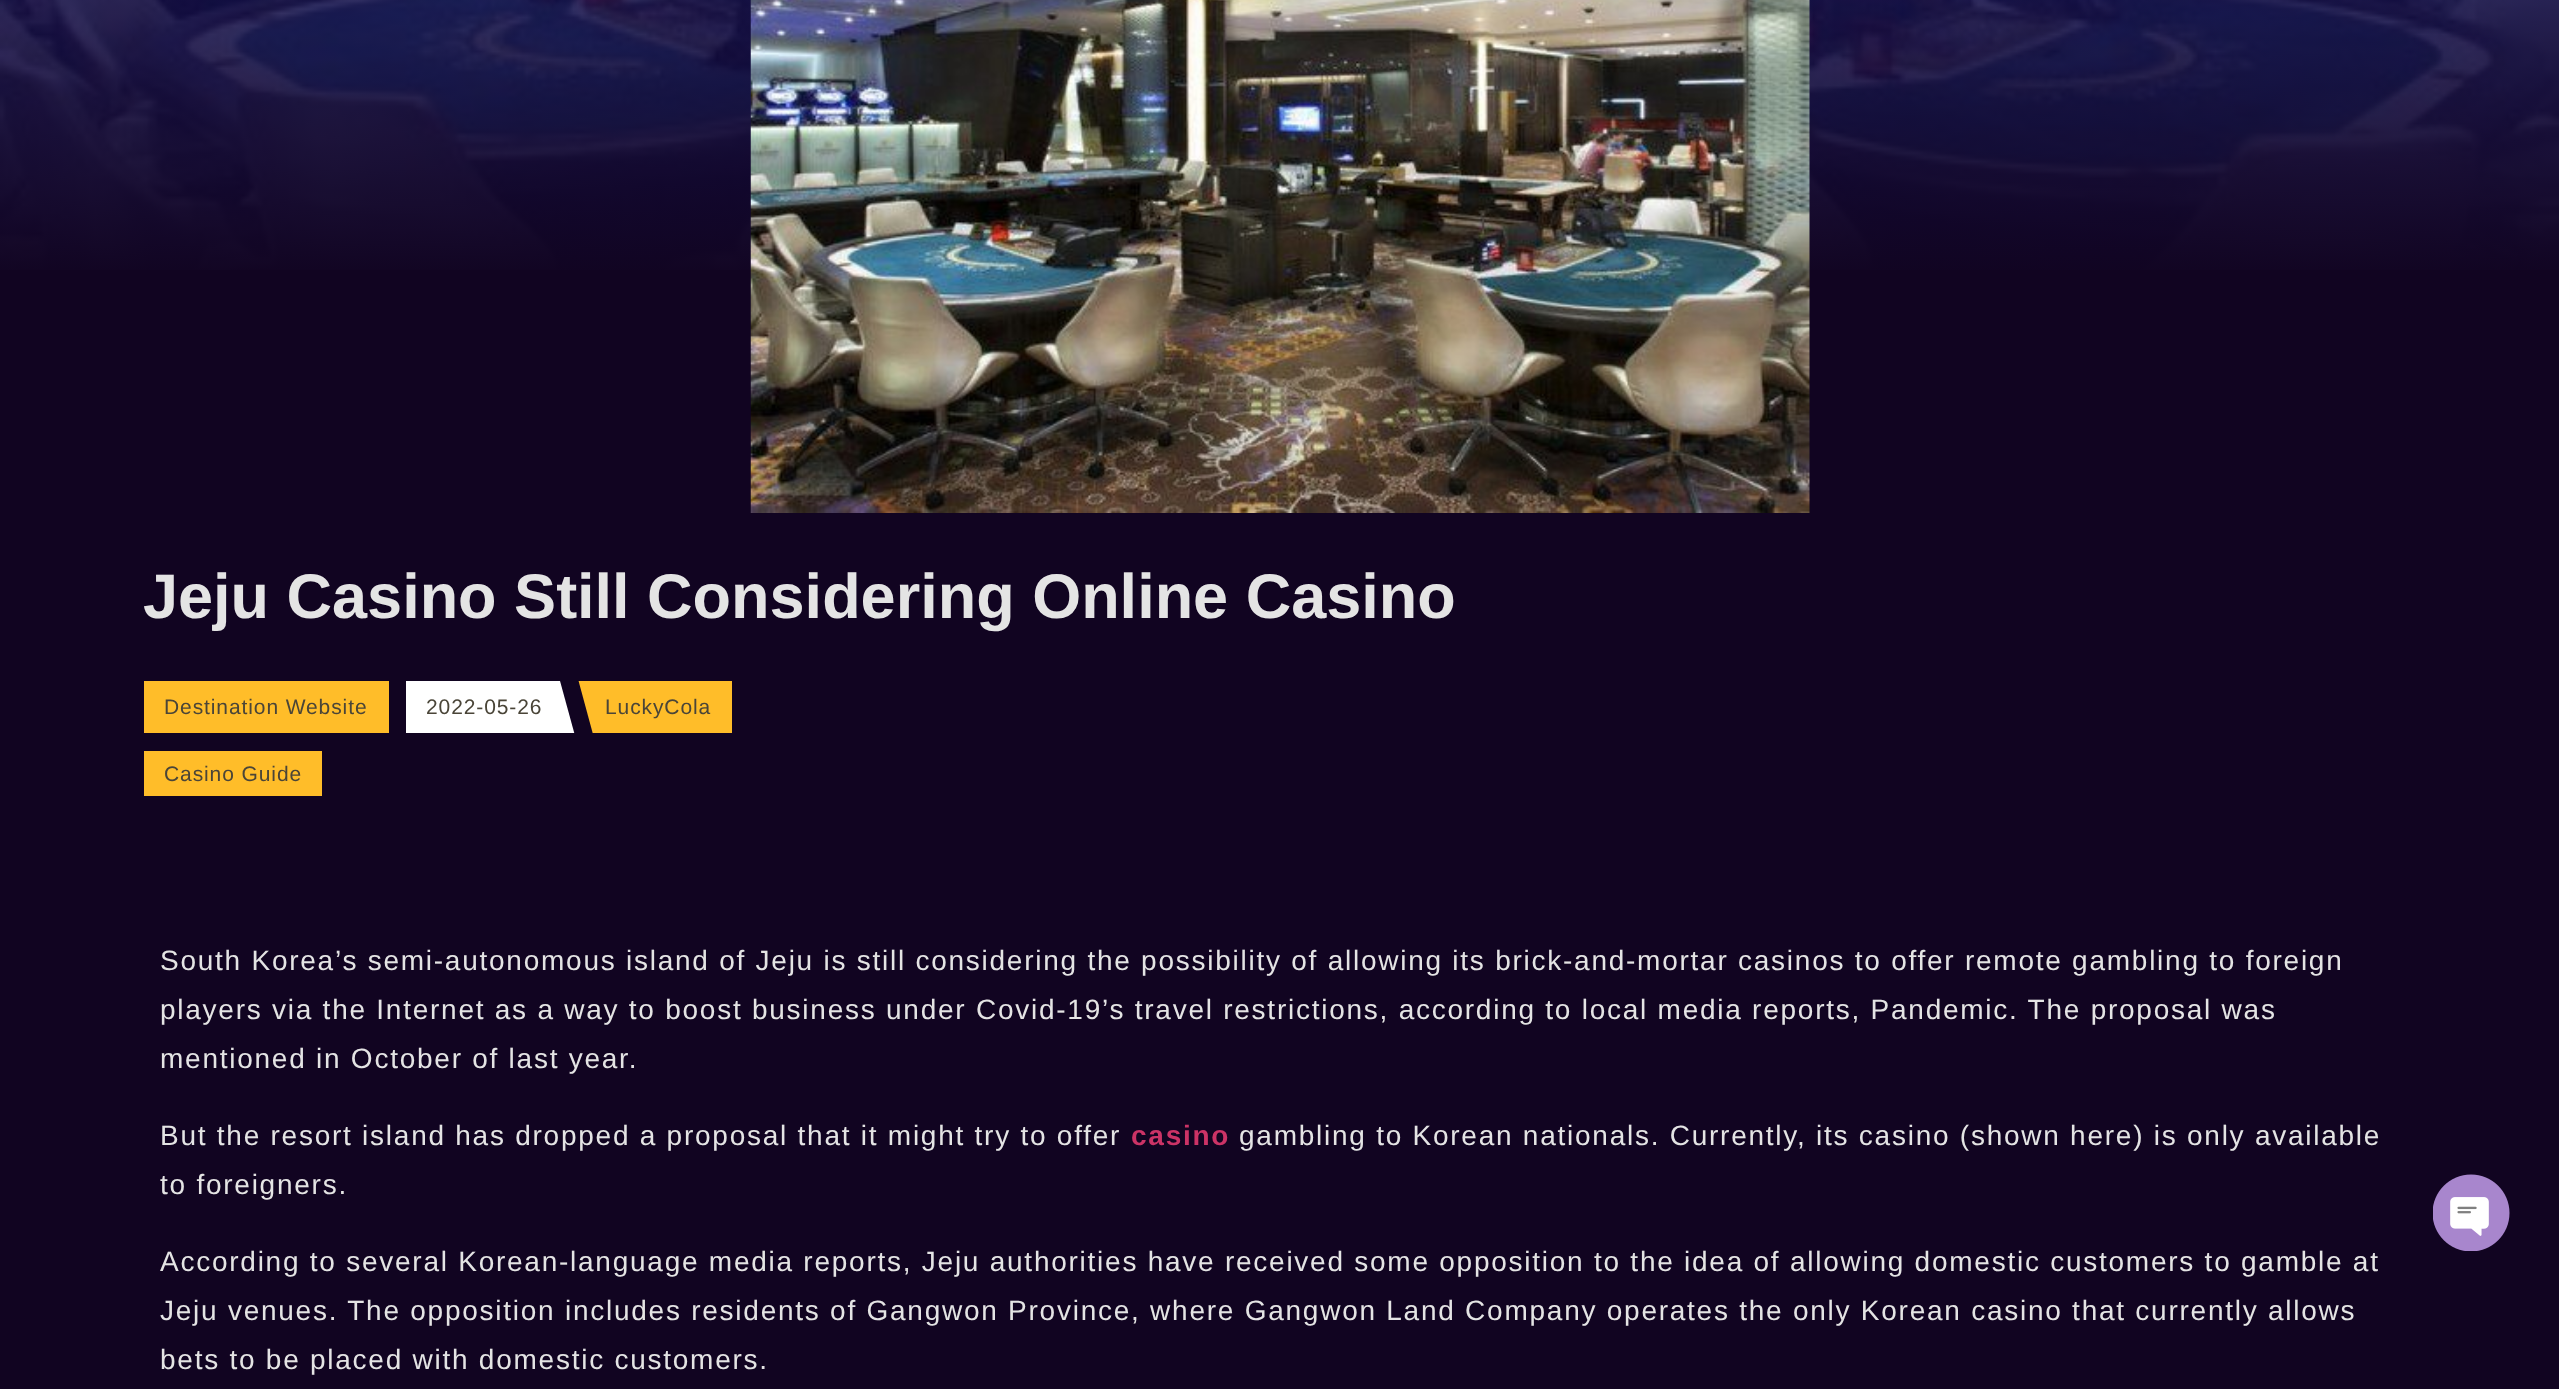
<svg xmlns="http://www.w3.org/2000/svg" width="2559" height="1389">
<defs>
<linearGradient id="g1" gradientUnits="userSpaceOnUse" x1="1280" y1="-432" x2="1280" y2="319"><stop offset="0" stop-color="#14141e" stop-opacity="0.75"/><stop offset="0.18" stop-color="#141464" stop-opacity="0.75"/><stop offset="0.32" stop-color="#141464" stop-opacity="0.75"/><stop offset="0.95" stop-color="#110421"/></linearGradient>
<clipPath id="clip1"><rect x="571" y="681" width="161" height="52"/></clipPath>
<clipPath id="clip2"><rect x="406" y="681" width="172" height="52"/></clipPath>
</defs>
<rect width="100%" height="100%" fill="#110421"/>
<image x="0" y="0" width="2559" height="270" href="media/1.png"/>
<rect width="2559" height="270" fill="url(#g1)"/>
<image x="750" y="0" width="1060" height="513" href="media/2.png"/>
<text x="143" y="618" style="font-family:Liberation Sans;font-size:63px;font-weight:bold;fill:#e4e4e4">Jeju Casino Still Considering Online Casino</text>
<rect x="144" y="681" width="245" height="52" fill="#ffbd29"/>
<text x="164" y="714" style="font-family:Liberation Sans;font-size:21px;letter-spacing:0.9px;fill:#4a4538">Destination Website</text>
<rect x="578" y="681" width="154" height="52" fill="#ffbd29"/>
<g clip-path="url(#clip1)">
<path d="M551 659l20-6l23 85l-21 5z" fill="#110421"/>
</g>
<rect x="406" y="681" width="169" height="52" fill="#fff"/>
<text x="426" y="714" style="font-family:Liberation Sans;font-size:21px;letter-spacing:0.9px;fill:#4a4538">2022-05-26</text>
<g clip-path="url(#clip2)">
<path d="M554 659l20-6l23 85l-20 5z" fill="#110421"/>
</g>
<text x="605" y="714" style="font-family:Liberation Sans;font-size:21px;letter-spacing:0.9px;fill:#4a4538">LuckyCola</text>
<rect x="144" y="751" width="178" height="45" fill="#ffbd29"/>
<text x="164" y="781" style="font-family:Liberation Sans;font-size:21px;letter-spacing:0.9px;fill:#4a4538">Casino Guide</text>
<text x="160" y="970" style="font-family:Liberation Sans;font-size:28px;letter-spacing:1.75px;fill:#e4e4e4">South Korea’s semi-autonomous island of Jeju is still considering the possibility of allowing its brick-and-mortar casinos to offer remote gambling to foreign</text>
<text x="160" y="1019" style="font-family:Liberation Sans;font-size:28px;letter-spacing:1.75px;fill:#e4e4e4">players via the Internet as a way to boost business under Covid-19’s travel restrictions, according to local media reports, Pandemic. The proposal was</text>
<text x="160" y="1068" style="font-family:Liberation Sans;font-size:28px;letter-spacing:1.75px;fill:#e4e4e4">mentioned in October of last year.</text>
<text x="160" y="1145" style="font-family:Liberation Sans;font-size:28px;letter-spacing:1.75px;fill:#e4e4e4">But the resort island has dropped a proposal that it might try to offer</text>
<text x="1131" y="1145" style="font-family:Liberation Sans;font-size:28px;font-weight:bold;letter-spacing:1.75px;fill:#c36">casino</text>
<text x="1239" y="1145" style="font-family:Liberation Sans;font-size:28px;letter-spacing:1.75px;fill:#e4e4e4">gambling to Korean nationals. Currently, its casino (shown here) is only available</text>
<text x="160" y="1194" style="font-family:Liberation Sans;font-size:28px;letter-spacing:1.75px;fill:#e4e4e4">to foreigners.</text>
<text x="160" y="1271" style="font-family:Liberation Sans;font-size:28px;letter-spacing:1.75px;fill:#e4e4e4">According to several Korean-language media reports, Jeju authorities have received some opposition to the idea of allowing domestic customers to gamble at</text>
<text x="160" y="1320" style="font-family:Liberation Sans;font-size:28px;letter-spacing:1.75px;fill:#e4e4e4">Jeju venues. The opposition includes residents of Gangwon Province, where Gangwon Land Company operates the only Korean casino that currently allows</text>
<text x="160" y="1369" style="font-family:Liberation Sans;font-size:28px;letter-spacing:1.75px;fill:#e4e4e4">bets to be placed with domestic customers.</text>
<image x="2433" y="1174" width="77" height="77" href="media/3.png"/>
</svg>
